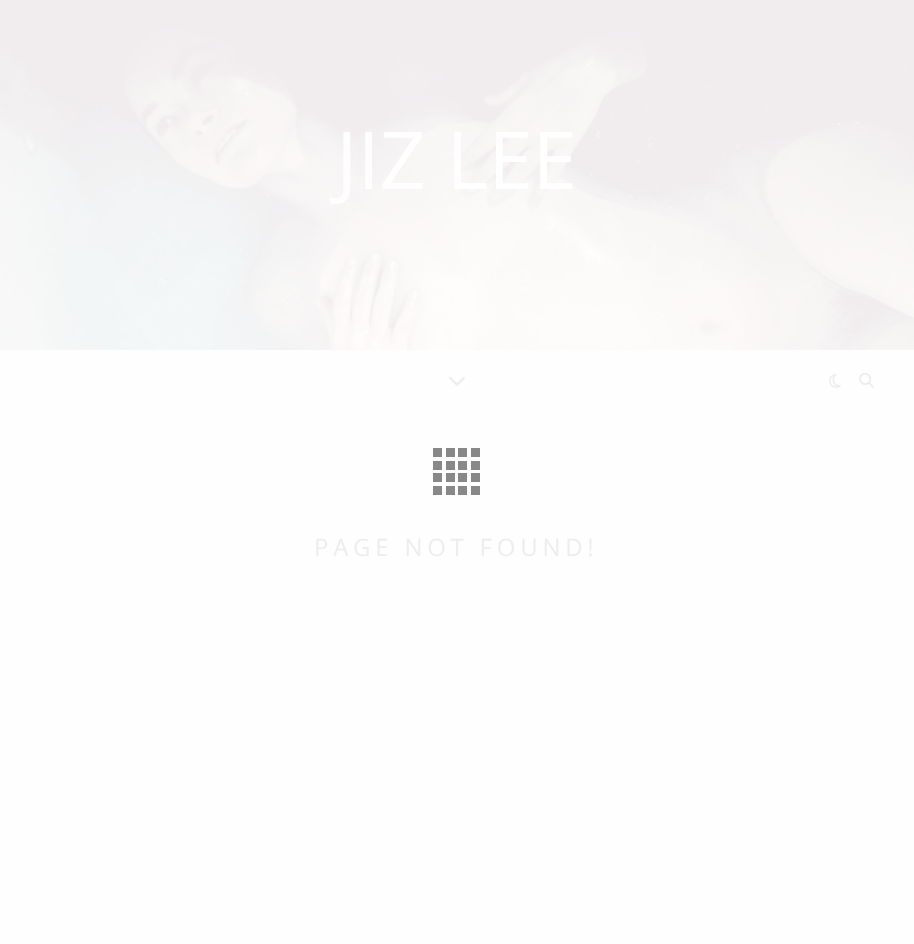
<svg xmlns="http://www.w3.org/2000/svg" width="914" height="944">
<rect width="100%" height="100%" fill="#fefefe"/>
<image x="0" y="0" width="914" height="350" href="media/1.png"/>
<text x="336" y="189" style="font-family:Open Sans;font-size:80px;fill:#fff">JIZ LEE</text>
<image x="449" y="376" width="16" height="10" href="media/2.png"/>
<image x="829" y="374" width="12" height="14" href="media/3.png"/>
<image x="859" y="372" width="15" height="16" href="media/4.png"/>
<text x="314" y="556" style="font-family:Open Sans;font-size:24px;letter-spacing:4.75px;fill:#ededed">PAGE NOT FOUND!</text>
<rect x="433" y="448" width="9" height="9" fill="#888"/>
<rect x="446" y="448" width="9" height="9" fill="#888"/>
<rect x="458" y="448" width="9" height="9" fill="#888"/>
<rect x="471" y="448" width="9" height="9" fill="#888"/>
<rect x="433" y="461" width="9" height="9" fill="#888"/>
<rect x="446" y="461" width="9" height="9" fill="#888"/>
<rect x="458" y="461" width="9" height="9" fill="#888"/>
<rect x="471" y="461" width="9" height="9" fill="#888"/>
<rect x="433" y="473" width="9" height="9" fill="#888"/>
<rect x="446" y="473" width="9" height="9" fill="#888"/>
<rect x="458" y="473" width="9" height="9" fill="#888"/>
<rect x="471" y="473" width="9" height="9" fill="#888"/>
<rect x="433" y="486" width="9" height="9" fill="#888"/>
<rect x="446" y="486" width="9" height="9" fill="#888"/>
<rect x="458" y="486" width="9" height="9" fill="#888"/>
<rect x="471" y="486" width="9" height="9" fill="#888"/>
</svg>
